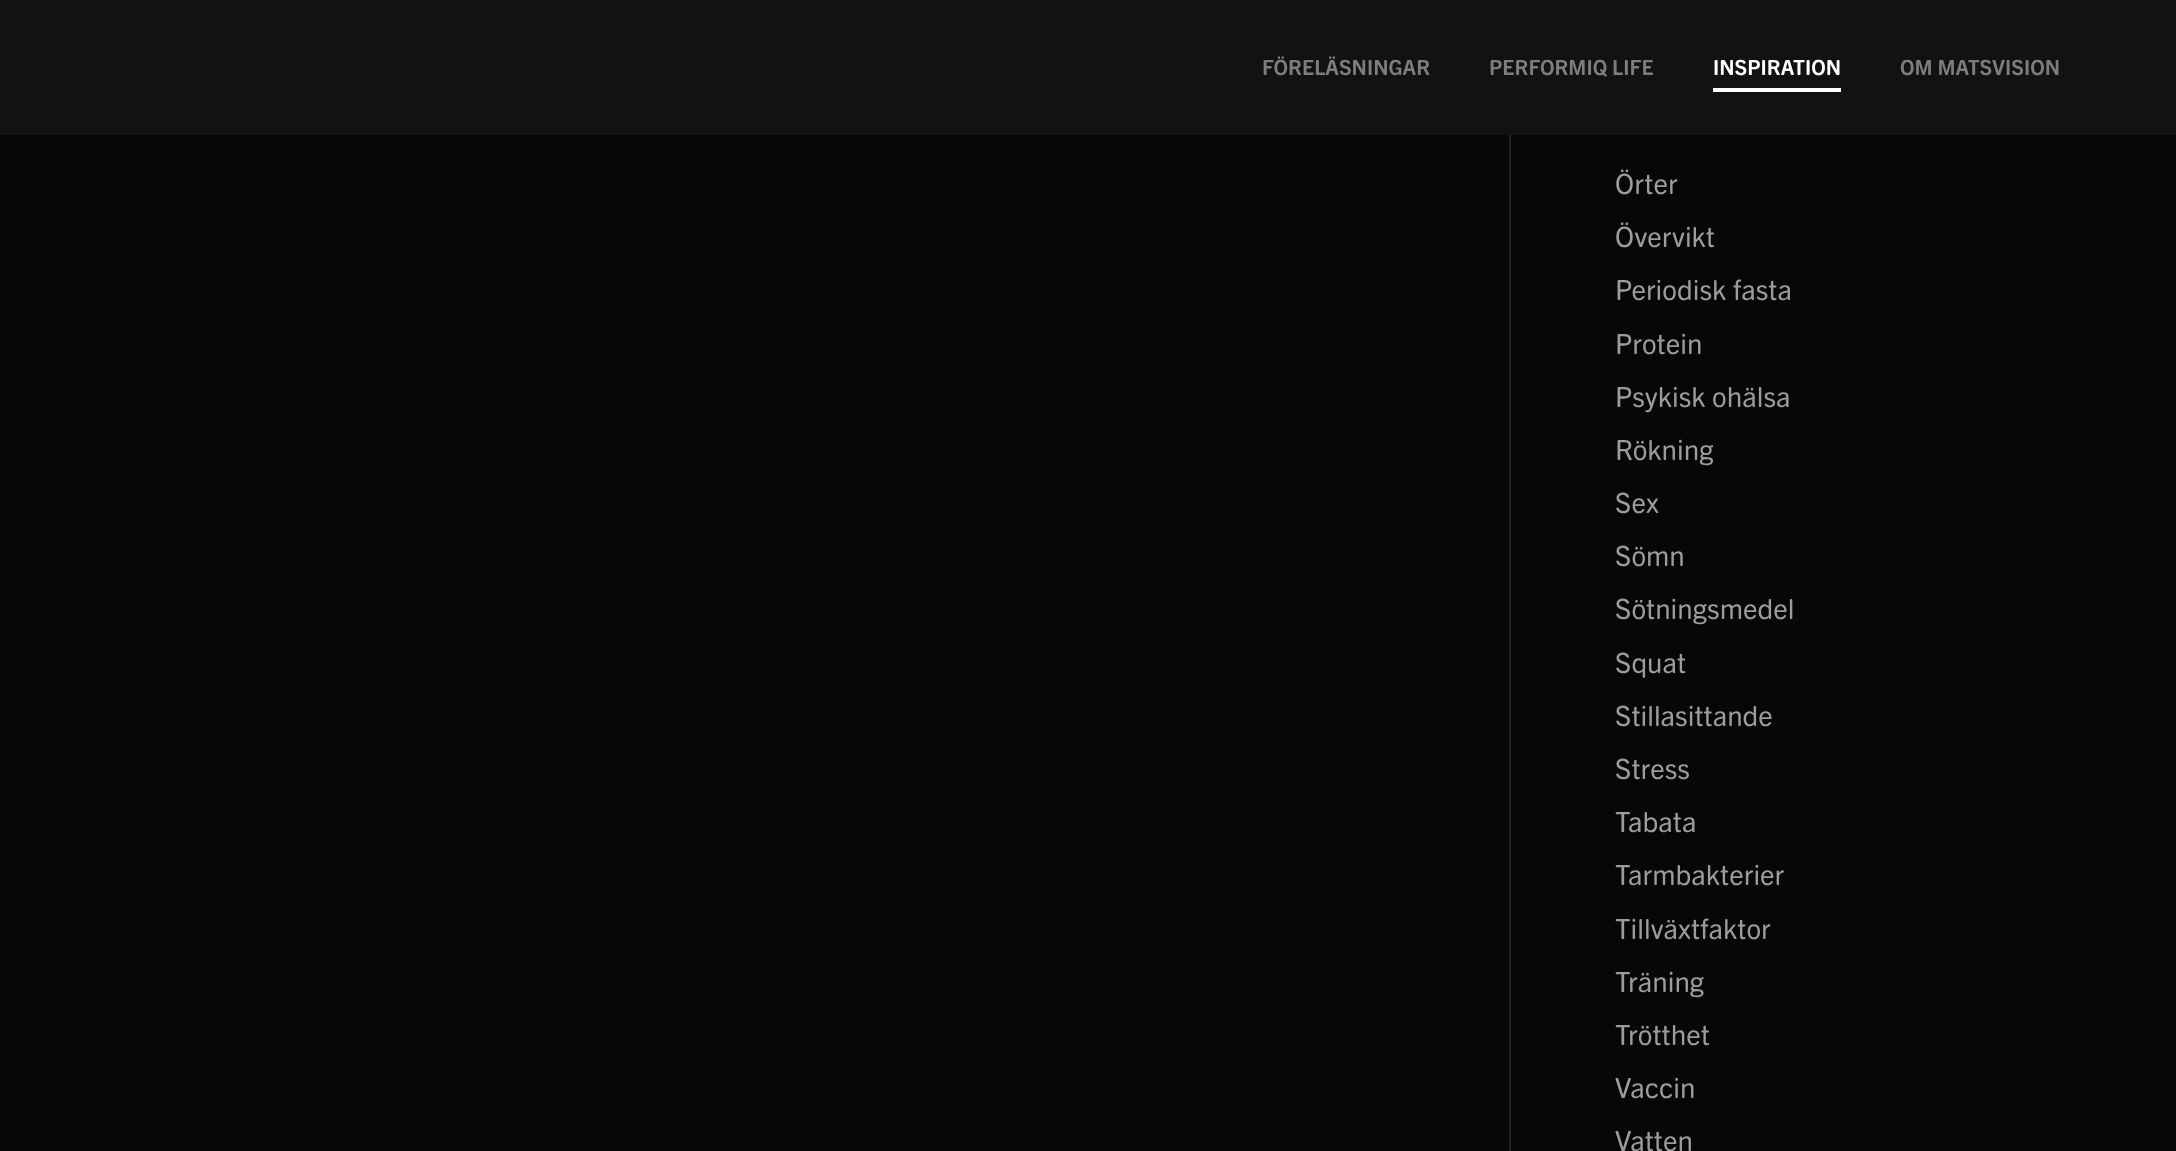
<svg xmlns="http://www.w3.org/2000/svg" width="2176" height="1151">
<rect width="100%" height="100%" fill="#070708"/>
<rect width="2176" height="135" fill="#121215"/>
<text x="1262" y="75" style="font-family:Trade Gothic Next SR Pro;font-size:21px;font-weight:bold;fill:#7d7d7e">FÖRELÄSNINGAR</text>
<text x="1489" y="75" style="font-family:Trade Gothic Next SR Pro;font-size:21px;font-weight:bold;fill:#7d7d7e">PERFORMIQ LIFE</text>
<rect x="1713" y="88" width="128" height="4" fill="#fff"/>
<text x="1713" y="75" style="font-family:Trade Gothic Next SR Pro;font-size:21px;font-weight:bold;fill:#fff">INSPIRATION</text>
<text x="1900" y="75" style="font-family:Trade Gothic Next SR Pro;font-size:21px;font-weight:bold;fill:#7d7d7e">OM MATSVISION</text>
<rect x="1509" y="135" width="2" height="1016" fill="#202020"/>
<text x="1615" y="194" style="font-family:Trade Gothic Next SR Pro;font-size:28px;fill:#9c9c9c">Örter</text>
<text x="1615" y="247" style="font-family:Trade Gothic Next SR Pro;font-size:28px;fill:#9c9c9c">Övervikt</text>
<text x="1615" y="300" style="font-family:Trade Gothic Next SR Pro;font-size:28px;fill:#9c9c9c">Periodisk fasta</text>
<text x="1615" y="354" style="font-family:Trade Gothic Next SR Pro;font-size:28px;fill:#9c9c9c">Protein</text>
<text x="1615" y="407" style="font-family:Trade Gothic Next SR Pro;font-size:28px;fill:#9c9c9c">Psykisk ohälsa</text>
<text x="1615" y="460" style="font-family:Trade Gothic Next SR Pro;font-size:28px;fill:#9c9c9c">Rökning</text>
<text x="1615" y="513" style="font-family:Trade Gothic Next SR Pro;font-size:28px;fill:#9c9c9c">Sex</text>
<text x="1615" y="566" style="font-family:Trade Gothic Next SR Pro;font-size:28px;fill:#9c9c9c">Sömn</text>
<text x="1615" y="619" style="font-family:Trade Gothic Next SR Pro;font-size:28px;fill:#9c9c9c">Sötningsmedel</text>
<text x="1615" y="673" style="font-family:Trade Gothic Next SR Pro;font-size:28px;fill:#9c9c9c">Squat</text>
<text x="1615" y="726" style="font-family:Trade Gothic Next SR Pro;font-size:28px;fill:#9c9c9c">Stillasittande</text>
<text x="1615" y="779" style="font-family:Trade Gothic Next SR Pro;font-size:28px;fill:#9c9c9c">Stress</text>
<text x="1615" y="832" style="font-family:Trade Gothic Next SR Pro;font-size:28px;fill:#9c9c9c">Tabata</text>
<text x="1615" y="885" style="font-family:Trade Gothic Next SR Pro;font-size:28px;fill:#9c9c9c">Tarmbakterier</text>
<text x="1615" y="939" style="font-family:Trade Gothic Next SR Pro;font-size:28px;fill:#9c9c9c">Tillväxtfaktor</text>
<text x="1615" y="992" style="font-family:Trade Gothic Next SR Pro;font-size:28px;fill:#9c9c9c">Träning</text>
<text x="1615" y="1045" style="font-family:Trade Gothic Next SR Pro;font-size:28px;fill:#9c9c9c">Trötthet</text>
<text x="1615" y="1098" style="font-family:Trade Gothic Next SR Pro;font-size:28px;fill:#9c9c9c">Vaccin</text>
<text x="1615" y="1151" style="font-family:Trade Gothic Next SR Pro;font-size:28px;fill:#9c9c9c">Vatten</text>
</svg>
